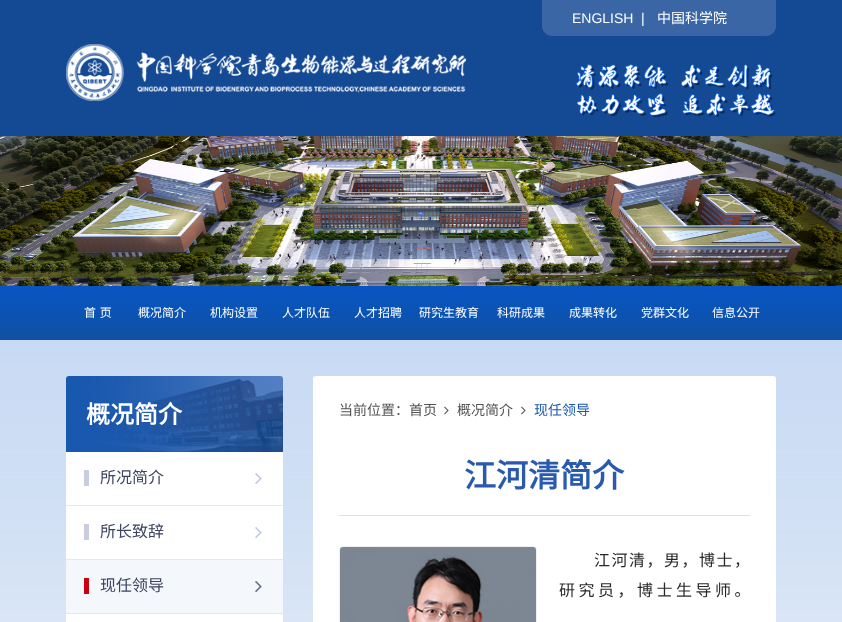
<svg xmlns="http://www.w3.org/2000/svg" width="842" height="622">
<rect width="100%" height="100%" fill="#0f51a3"/>
<rect width="842" height="136" fill="#144994"/>
<path d="M542 0h234v26c0 5.5-4.5 10-10 10h-214c-5.5 0-10-4.5-10-10z" fill="#3a66a5"/>
<text x="572" y="23" style="font-family:Liberation Sans;font-size:14px;fill:#fff">ENGLISH</text>
<text x="641" y="23" style="font-family:Liberation Sans;font-size:14px;fill:#fff">|</text>
<text x="657" y="23" style="font-family:Noto Sans CJK SC;font-size:14px;fill:#fff">中国科学院</text>
<image x="576" y="64" width="200" height="53" href="media/1.png"/>
<image x="66" y="44" width="400" height="57" href="media/2.png"/>
<image x="0" y="136" width="842" height="150" href="media/3.png"/>
<image x="0" y="286" width="842" height="45" href="media/4.png"/>
<text x="84" y="317" word-spacing="1" style="font-family:Noto Sans CJK SC;font-size:12px;fill:#fff">首 页</text>
<text x="138" y="317" style="font-family:Noto Sans CJK SC;font-size:12px;fill:#fff">概况简介</text>
<text x="210" y="317" style="font-family:Noto Sans CJK SC;font-size:12px;fill:#fff">机构设置</text>
<text x="282" y="317" style="font-family:Noto Sans CJK SC;font-size:12px;fill:#fff">人才队伍</text>
<text x="354" y="317" style="font-family:Noto Sans CJK SC;font-size:12px;fill:#fff">人才招聘</text>
<text x="419" y="317" style="font-family:Noto Sans CJK SC;font-size:12px;fill:#fff">研究生教育</text>
<text x="497" y="317" style="font-family:Noto Sans CJK SC;font-size:12px;fill:#fff">科研成果</text>
<text x="569" y="317" style="font-family:Noto Sans CJK SC;font-size:12px;fill:#fff">成果转化</text>
<text x="641" y="317" style="font-family:Noto Sans CJK SC;font-size:12px;fill:#fff">党群文化</text>
<text x="712" y="317" style="font-family:Noto Sans CJK SC;font-size:12px;fill:#fff">信息公开</text>
<image x="0" y="340" width="842" height="282" href="media/5.png"/>
<image x="66" y="376" width="217" height="76" href="media/6.png"/>
<text x="86" y="423" style="font-family:Noto Sans CJK SC;font-size:24px;font-weight:bold;fill:#fff">概况简介</text>
<rect x="66" y="452" width="217" height="170" fill="#fff"/>
<rect x="66" y="505" width="217" height="1" fill="#e0e8f4"/>
<rect x="84" y="470" width="5" height="16" fill="#c8cddf"/>
<text x="100" y="483" style="font-family:Noto Sans CJK SC;font-size:16px;fill:#3b4461">所况简介</text>
<image x="255" y="473" width="7" height="11" href="media/7.png"/>
<rect x="66" y="559" width="217" height="1" fill="#e0e8f4"/>
<rect x="84" y="524" width="5" height="16" fill="#c8cddf"/>
<text x="100" y="537" style="font-family:Noto Sans CJK SC;font-size:16px;fill:#3b4461">所长致辞</text>
<image x="255" y="527" width="7" height="11" href="media/7.png"/>
<rect x="66" y="560" width="217" height="53" fill="#f4f7fc"/>
<rect x="66" y="613" width="217" height="1" fill="#e0e8f4"/>
<rect x="84" y="578" width="5" height="16" fill="#ca000e"/>
<text x="100" y="591" style="font-family:Noto Sans CJK SC;font-size:16px;fill:#3b4461">现任领导</text>
<image x="255" y="581" width="7" height="12" href="media/8.png"/>
<rect x="313" y="376" width="463" height="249" rx="3" fill="#fff"/>
<text x="339" y="415" style="font-family:Noto Sans CJK SC;font-size:14px;fill:#545454">当前位置：首页</text>
<image x="444" y="406" width="5" height="9" href="media/9.png"/>
<text x="457" y="415" style="font-family:Noto Sans CJK SC;font-size:14px;fill:#545454">概况简介</text>
<image x="521" y="406" width="5" height="9" href="media/9.png"/>
<text x="534" y="415" style="font-family:Noto Sans CJK SC;font-size:14px;fill:#1958af">现任领导</text>
<rect x="339" y="515" width="411" height="1" fill="#e0e0e0"/>
<text x="464" y="487" style="font-family:Noto Sans CJK SC;font-size:32px;font-weight:bold;fill:#295aae">江河清简介</text>
<rect x="339.5" y="546.5" width="197" height="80" rx="3.5" fill="none" stroke="#efefef"/>
<image x="340" y="547" width="196" height="75" href="media/10.png"/>
<text x="594" y="566" style="font-family:Noto Sans CJK SC;font-size:16px;letter-spacing:1.5px;fill:#282828">江河清，男，博士，</text>
<text x="559" y="596" style="font-family:Noto Sans CJK SC;font-size:16px;letter-spacing:3.5px;fill:#282828">研究员，博士生导师。</text>
</svg>
